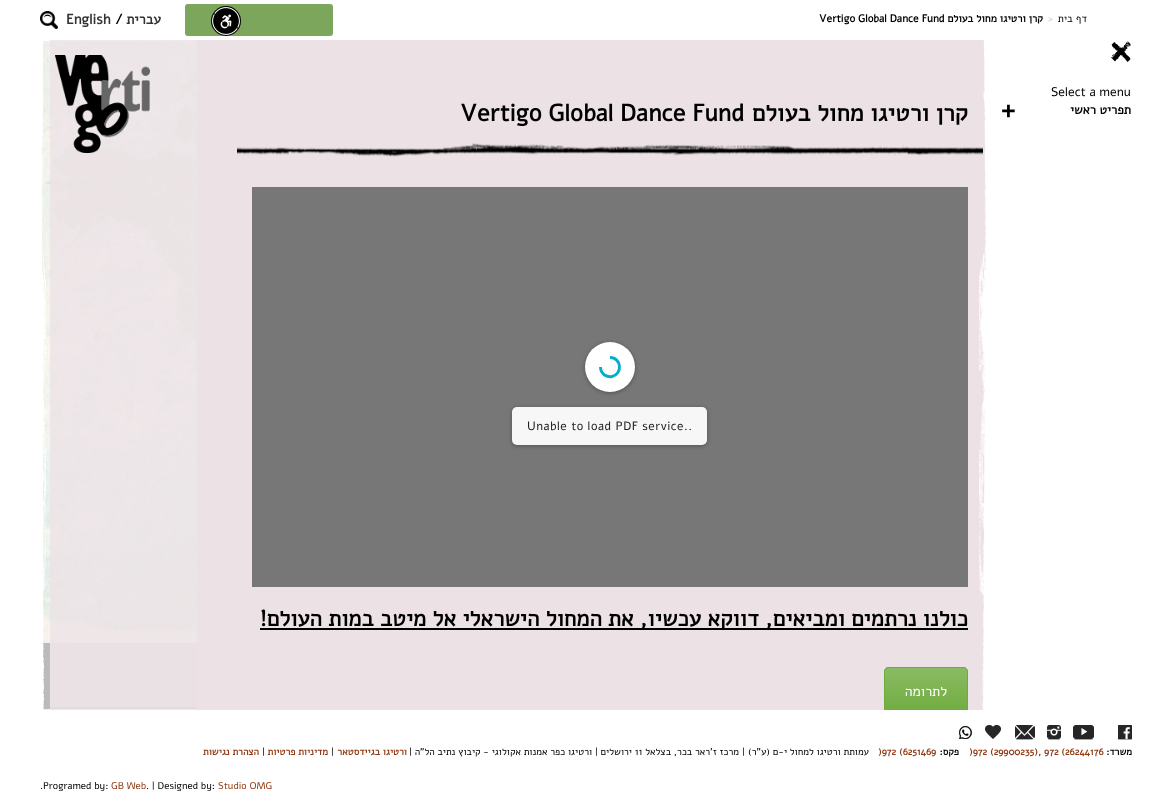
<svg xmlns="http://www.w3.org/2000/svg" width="1172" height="808">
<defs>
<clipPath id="clip1"><rect x="884" y="667" width="84" height="49" rx="5"/></clipPath>
<linearGradient id="g1" gradientUnits="userSpaceOnUse" x1="926" y1="668" x2="926" y2="715"><stop offset="0" stop-color="#fff" stop-opacity="0.2"/><stop offset="1" stop-color="#fff" stop-opacity="0.01"/></linearGradient>
<clipPath id="clip2"><rect x="212" y="40" width="796" height="670"/></clipPath>
</defs>
<rect width="100%" height="100%" fill="#bbb"/>
<rect width="1172" height="40" fill="#fff"/>
<rect x="185" y="4" width="148" height="32" rx="3" fill="#7ba65b"/>
<circle cx="226" cy="21" r="15" fill="#020202"/>
<image x="212" y="7" width="28" height="28" href="media/1.png"/>
<text x="1087" y="22" style="font-family:Alef;font-size:10.5px;direction:rtl;fill:#000">דף בית</text>
<text x="1048" y="22" style="font-family:Alef;font-size:10.5px;fill:#ccc">&gt;</text>
<text x="1043" y="22" style="font-family:Alef;font-size:10.5px;font-weight:bold;direction:rtl;fill:#000">קרן ורטיגו מחול בעולם</text>
<text x="819" y="22" style="font-family:Alef;font-size:10.5px;font-weight:bold;fill:#000">Vertigo Global Dance Fund</text>
<text x="161" y="24" style="font-family:Alef;font-size:14px;font-weight:bold;direction:rtl;fill:#333">עברית</text>
<text x="115" y="24" style="font-family:Alef;font-size:14px;font-weight:bold;fill:#000">/</text>
<text x="66" y="24" style="font-family:Alef;font-size:14px;font-weight:bold;fill:#333">English</text>
<image x="40" y="11" width="18" height="18" href="media/2.png"/>
<rect x="989" y="40" width="183" height="670" fill="#fff"/>
<rect y="40" width="40" height="670" fill="#fff"/>
<rect x="50" y="643" width="147" height="64" fill="#e2dadd"/>
<image x="40" y="41" width="157" height="602" href="media/3.png"/>
<image x="40" y="40" width="157" height="670" href="media/4.png"/>
<rect x="197" y="40" width="791" height="670" fill="#ece2e6"/>
<image x="237" y="143" width="746" height="14" href="media/7.png"/>
<image x="979" y="40" width="10" height="670" href="media/5.png"/>
<image x="1111" y="41" width="20" height="22" href="media/6.png"/>
<text x="1051" y="96" style="font-family:Alef;font-size:12.5px;fill:#000">Select a menu</text>
<text x="1131" y="114" style="font-family:Alef;font-size:12.5px;font-weight:bold;direction:rtl;fill:#000">תפריט ראשי</text>
<text x="1000" y="119" style="font-family:Alef;font-size:29px;font-weight:bold;fill:#000">+</text>
<rect x="50" y="40" width="147" height="670" fill="#ece2e6cc"/>
<text x="968" y="121" style="font-family:Alef;font-size:23.75px;font-weight:bold;direction:rtl;fill:#000">קרן ורטיגו מחול בעולם</text>
<text x="460" y="121" style="font-family:Alef;font-size:23.75px;font-weight:bold;fill:#000">Vertigo Global Dance Fund</text>
<rect x="252" y="187" width="716" height="400" fill="#777"/>
<rect x="585" y="343" width="50" height="50" rx="25" fill="#0000004d" filter="blur(2px)"/>
<circle cx="610" cy="367" r="25" fill="#fff"/>
<path d="M610 357.5c11.5 0 13 16.5 2 19c-2.5 .5-5 0-7.5-1.5c-2.5-2-4-5-4-8" fill="none" stroke="#07abcc" stroke-width="2.9"/>
<rect x="512" y="408" width="195" height="38" rx="5" fill="#0000004d" filter="blur(2px)"/>
<rect x="512" y="407" width="195" height="38" rx="5" fill="#f7f7f7"/>
<text x="527" y="430" style="font-family:Alef;font-size:12px;letter-spacing:0.5px;fill:#222">Unable to load PDF service..</text>
<rect x="260" y="628" width="708" height="2" fill="#000"/>
<text x="968" y="626" style="font-family:Alef;font-size:22.4px;font-weight:bold;direction:rtl;fill:#000">כולנו נרתמים ומביאים, דווקא עכשיו, את המחול הישראלי אל מיטב במות העולם!</text>
<path d="M889 667h74c3 0 5 2 5 5v38h-84v-38c0-3 2-5 5-5z" fill="#6dab3c"/>
<g clip-path="url(#clip1)">
<rect x="884" y="668" width="84" height="42" fill="url(#g1)"/>
</g>
<rect y="710" width="1172" height="98" fill="#fff"/>
<g clip-path="url(#clip2)">
<rect x="884.5" y="667.5" width="83" height="48" rx="4.5" fill="none" stroke="#6dab3c"/>
</g>
<text x="947" y="696" style="font-family:Alef;font-size:14px;direction:rtl;fill:#fff">לתרומה</text>
<image x="55" y="55" width="95" height="98" href="media/8.png"/>
<image x="1118" y="725" width="14" height="15" href="media/9.png"/>
<image x="1073" y="725" width="21" height="15" href="media/10.png"/>
<image x="1047" y="725" width="14" height="15" href="media/11.png"/>
<image x="1015" y="725" width="20" height="15" href="media/12.png"/>
<image x="985" y="725" width="16" height="14" href="media/13.png"/>
<image x="959" y="726" width="13" height="13" href="media/14.png"/>
<text x="1132" y="755" style="font-family:Alef;font-size:9.8px;font-weight:bold;direction:rtl;fill:#000">משרד:</text>
<text x="969" y="755" style="font-family:Alef;font-size:9.8px;font-weight:bold;fill:#913b15">)972 (29900235), 972 (26244176</text>
<text x="959" y="755" style="font-family:Alef;font-size:9.8px;font-weight:bold;direction:rtl;fill:#000">פקס:</text>
<text x="878" y="755" style="font-family:Alef;font-size:9.8px;font-weight:bold;fill:#913b15">)972 (6251469</text>
<text x="869" y="755" style="font-family:Alef;font-size:9.8px;direction:rtl;fill:#000">עמותת ורטיגו למחול י-ם (ע"ר)</text>
<text x="742" y="755" style="font-family:Alef;font-size:9.8px;fill:#000">|</text>
<text x="739" y="755" style="font-family:Alef;font-size:9.8px;direction:rtl;fill:#000">מרכז ז'ראר בכר, בצלאל</text>
<text x="635" y="755" style="font-family:Alef;font-size:9.8px;fill:#000">11</text>
<text x="632" y="755" style="font-family:Alef;font-size:9.8px;direction:rtl;fill:#000">ירושלים | ורטיגו כפר אמנות אקולוגי - קיבוץ נתיב הל"ה</text>
<text x="409" y="755" style="font-family:Alef;font-size:9.8px;fill:#000">|</text>
<text x="407" y="755" style="font-family:Alef;font-size:9.8px;font-weight:bold;direction:rtl;fill:#913b15">ורטיגו בגיידסטאר</text>
<text x="331" y="755" style="font-family:Alef;font-size:9.8px;fill:#000">|</text>
<text x="328" y="755" style="font-family:Alef;font-size:9.8px;font-weight:bold;direction:rtl;fill:#913b15">מדיניות פרטיות</text>
<text x="262" y="755" style="font-family:Alef;font-size:9.8px;fill:#000">|</text>
<text x="259" y="755" style="font-family:Alef;font-size:9.8px;font-weight:bold;direction:rtl;fill:#913b15">הצהרת נגישות</text>
<text x="218" y="789" style="font-family:Alef;font-size:9.8px;fill:#913b15">Studio OMG</text>
<text x="146" y="789" style="font-family:Alef;font-size:9.8px;fill:#000">. | Designed by:</text>
<text x="111" y="789" style="font-family:Alef;font-size:9.8px;fill:#913b15">GB Web</text>
<text x="43" y="789" style="font-family:Alef;font-size:9.8px;fill:#000">Programed by:</text>
<text x="40" y="789" style="font-family:Alef;font-size:9.8px;fill:#000">.</text>
</svg>
